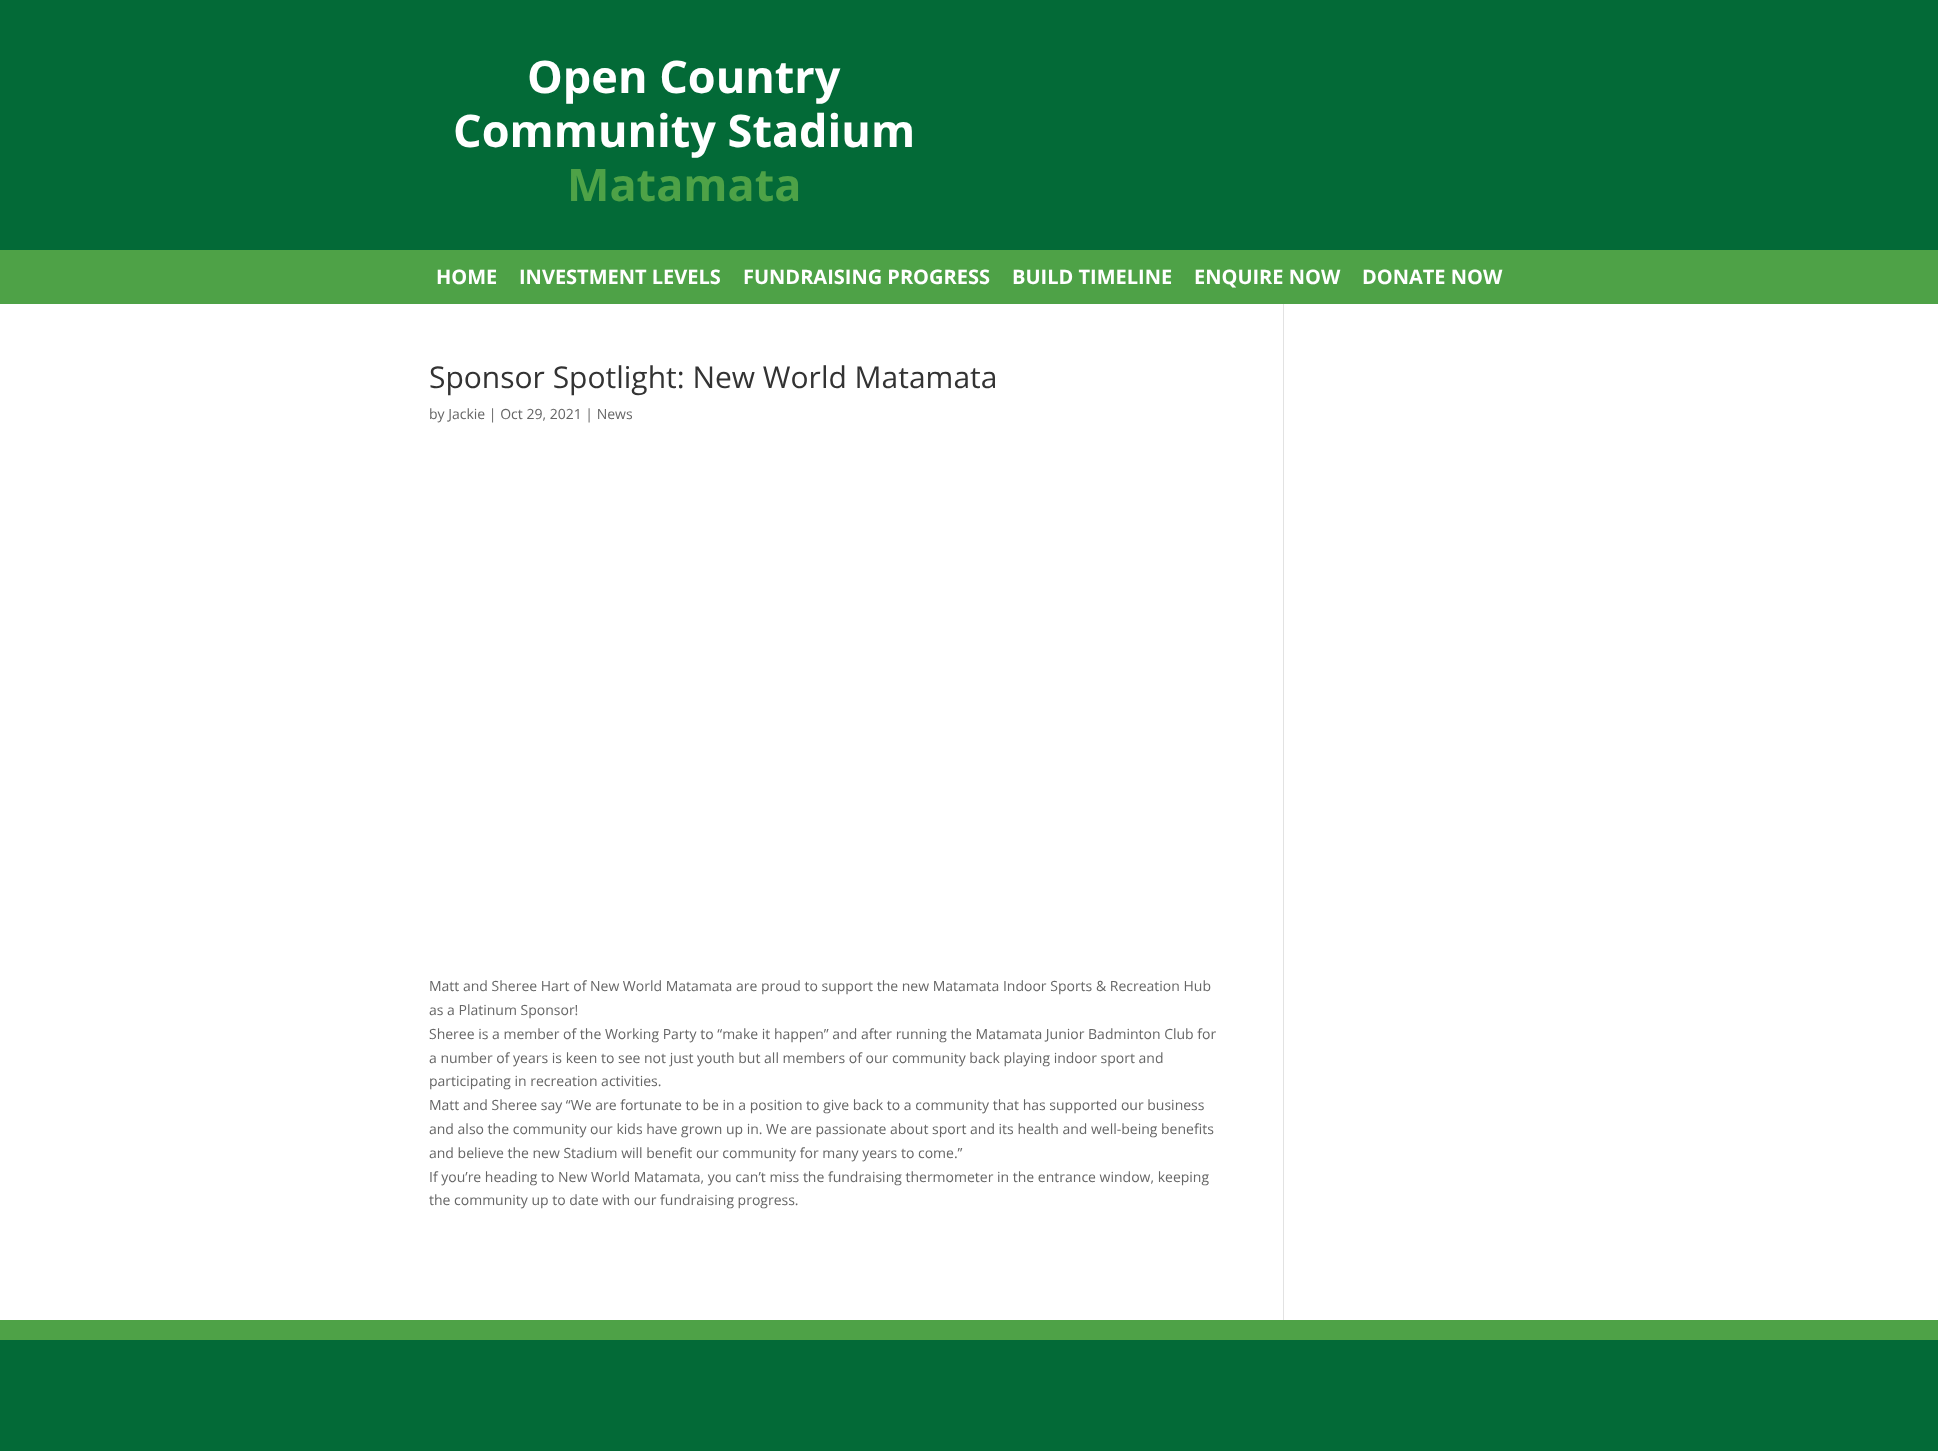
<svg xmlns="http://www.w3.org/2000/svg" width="1938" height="1451">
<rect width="100%" height="100%" fill="#fff"/>
<rect width="1938" height="250" fill="#036a37"/>
<text x="527" y="93" style="font-family:Open Sans;font-size:45px;font-weight:bold;fill:#fff">Open Country</text>
<text x="453" y="147" style="font-family:Open Sans;font-size:45px;font-weight:bold;fill:#fff">Community Stadium</text>
<text x="567" y="201" style="font-family:Open Sans;font-size:45px;font-weight:bold;fill:#4ea247">Matamata</text>
<rect y="250" width="1938" height="54" fill="#4ea247"/>
<text x="436" y="284" style="font-family:Open Sans;font-size:20px;font-weight:bold;fill:#fff">HOME</text>
<text x="519" y="284" style="font-family:Open Sans;font-size:20px;font-weight:bold;fill:#fff">INVESTMENT LEVELS</text>
<text x="743" y="284" style="font-family:Open Sans;font-size:20px;font-weight:bold;fill:#fff">FUNDRAISING PROGRESS</text>
<text x="1012" y="284" style="font-family:Open Sans;font-size:20px;font-weight:bold;fill:#fff">BUILD TIMELINE</text>
<text x="1194" y="284" style="font-family:Open Sans;font-size:20px;font-weight:bold;fill:#fff">ENQUIRE NOW</text>
<text x="1362" y="284" style="font-family:Open Sans;font-size:20px;font-weight:bold;fill:#fff">DONATE NOW</text>
<text x="429" y="388" style="font-family:Open Sans;font-size:30px;fill:#333">Sponsor Spotlight: New World Matamata</text>
<text x="429" y="419" style="font-family:Open Sans;font-size:14px;fill:#666">by Jackie | Oct 29, 2021 | News</text>
<text x="429" y="991" style="font-family:Open Sans;font-size:14px;fill:#666">Matt and Sheree Hart of New World Matamata are proud to support the new Matamata Indoor Sports &amp; Recreation Hub</text>
<text x="429" y="1015" style="font-family:Open Sans;font-size:14px;fill:#666">as a Platinum Sponsor!</text>
<text x="429" y="1039" style="font-family:Open Sans;font-size:14px;fill:#666">Sheree is a member of the Working Party to “make it happen” and after running the Matamata Junior Badminton Club for</text>
<text x="429" y="1063" style="font-family:Open Sans;font-size:14px;fill:#666">a number of years is keen to see not just youth but all members of our community back playing indoor sport and</text>
<text x="429" y="1086" style="font-family:Open Sans;font-size:14px;fill:#666">participating in recreation activities.</text>
<text x="429" y="1110" style="font-family:Open Sans;font-size:14px;fill:#666">Matt and Sheree say “We are fortunate to be in a position to give back to a community that has supported our business</text>
<text x="429" y="1134" style="font-family:Open Sans;font-size:14px;fill:#666">and also the community our kids have grown up in. We are passionate about sport and its health and well-being benefits</text>
<text x="429" y="1158" style="font-family:Open Sans;font-size:14px;fill:#666">and believe the new Stadium will benefit our community for many years to come.”</text>
<text x="429" y="1182" style="font-family:Open Sans;font-size:14px;fill:#666">If you’re heading to New World Matamata, you can’t miss the fundraising thermometer in the entrance window, keeping</text>
<text x="429" y="1205" style="font-family:Open Sans;font-size:14px;fill:#666">the community up to date with our fundraising progress.</text>
<rect x="1283" y="304" width="1" height="1016" fill="#e2e2e2"/>
<rect y="1340" width="1938" height="111" fill="#036a37"/>
<rect y="1320" width="1938" height="20" fill="#4ea247"/>
</svg>
